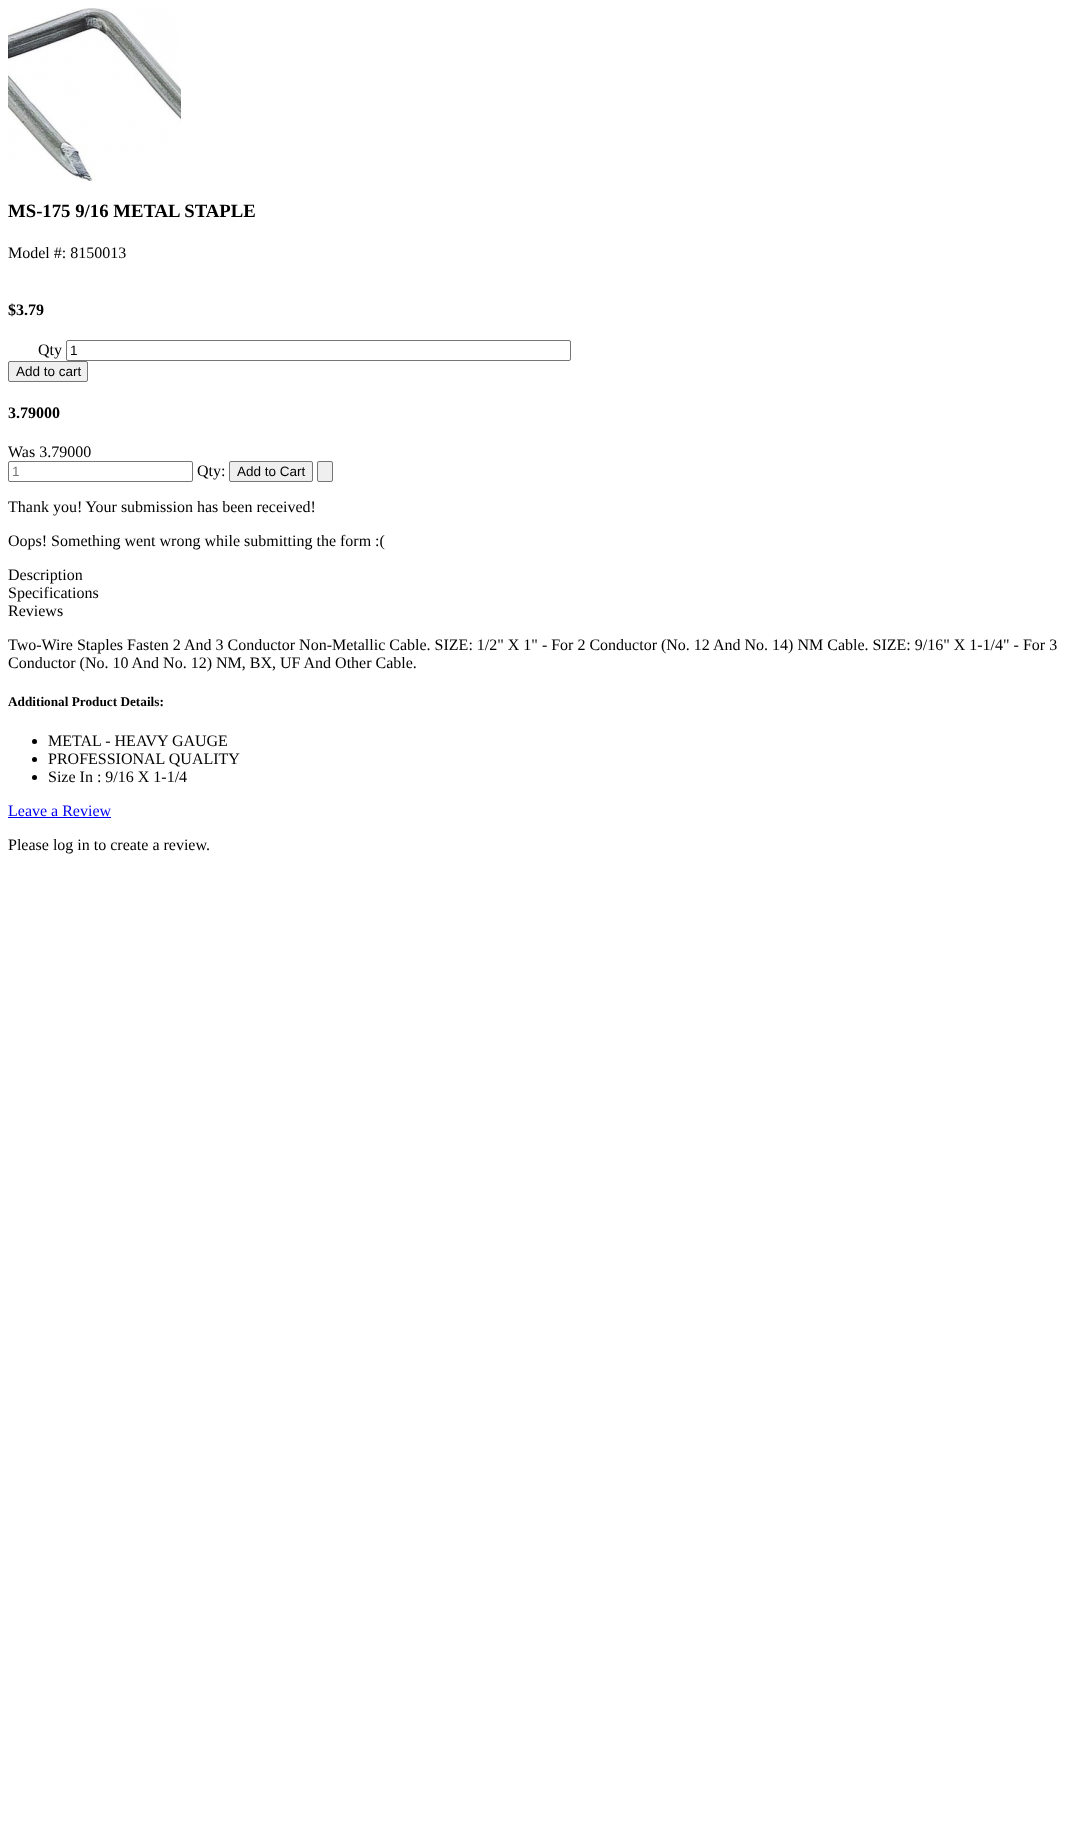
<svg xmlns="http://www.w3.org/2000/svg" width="1090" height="1826">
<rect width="100%" height="100%" fill="#fff"/>
<image x="8" y="8" width="173" height="173" href="media/1.png"/>
<text x="8" y="217" style="font-family:Liberation Serif;font-size:18.75px;font-weight:bold;fill:#000">MS-175 9/16 METAL STAPLE</text>
<text x="8" y="258" style="font-family:Liberation Serif;font-size:16px;fill:#000">Model #: 8150013</text>
<text x="8" y="315" style="font-family:Liberation Serif;font-size:16px;font-weight:bold;fill:#000">$3.79</text>
<text x="38" y="355" style="font-family:Liberation Serif;font-size:16px;fill:#000">Qty</text>
<rect x="66.5" y="340.5" width="504" height="20" rx="1.5" fill="none" stroke="#767676"/>
<text x="70" y="355" style="font-family:Liberation Sans;font-size:13.5px;fill:#000">1</text>
<rect x="8.5" y="361.5" width="79" height="20" rx="1.5" fill="#efefef" stroke="#767676"/>
<text x="16" y="376" style="font-family:Liberation Sans;font-size:13.5px;fill:#000">Add to cart</text>
<text x="8" y="418" style="font-family:Liberation Serif;font-size:16px;font-weight:bold;fill:#000">3.79000</text>
<text x="8" y="457" style="font-family:Liberation Serif;font-size:16px;fill:#000">Was 3.79000</text>
<rect x="8.5" y="461.5" width="184" height="20" rx="1.5" fill="none" stroke="#767676"/>
<text x="12" y="476" style="font-family:Liberation Sans;font-size:13.5px;fill:#757575">1</text>
<text x="197" y="476" style="font-family:Liberation Serif;font-size:16px;fill:#000">Qty:</text>
<rect x="229.5" y="461.5" width="83" height="20" rx="1.5" fill="#efefef" stroke="#767676"/>
<text x="237" y="476" style="font-family:Liberation Sans;font-size:13.5px;fill:#000">Add to Cart</text>
<rect x="317.5" y="461.5" width="15" height="20" rx="1.5" fill="#efefef" stroke="#767676"/>
<text x="8" y="512" style="font-family:Liberation Serif;font-size:16px;fill:#000">Thank you! Your submission has been received!</text>
<text x="8" y="546" style="font-family:Liberation Serif;font-size:16px;fill:#000">Oops! Something went wrong while submitting the form :(</text>
<text x="8" y="580" style="font-family:Liberation Serif;font-size:16px;fill:#000">Description</text>
<text x="8" y="598" style="font-family:Liberation Serif;font-size:16px;fill:#000">Specifications</text>
<text x="8" y="616" style="font-family:Liberation Serif;font-size:16px;fill:#000">Reviews</text>
<text x="8" y="650" style="font-family:Liberation Serif;font-size:16px;fill:#000">Two-Wire Staples Fasten 2 And 3 Conductor Non-Metallic Cable. SIZE: 1/2" X 1" - For 2 Conductor (No. 12 And No. 14) NM Cable. SIZE: 9/16" X 1-1/4" - For 3</text>
<text x="8" y="668" style="font-family:Liberation Serif;font-size:16px;fill:#000">Conductor (No. 10 And No. 12) NM, BX, UF And Other Cable.</text>
<text x="8" y="706" style="font-family:Liberation Serif;font-size:13.25px;font-weight:bold;fill:#000">Additional Product Details:</text>
<circle cx="34.5" cy="741.5" r="2.5" fill="#000"/>
<text x="48" y="746" style="font-family:Liberation Serif;font-size:16px;fill:#000">METAL - HEAVY GAUGE</text>
<circle cx="34.5" cy="759.5" r="2.5" fill="#000"/>
<text x="48" y="764" style="font-family:Liberation Serif;font-size:16px;fill:#000">PROFESSIONAL QUALITY</text>
<circle cx="34.5" cy="777.5" r="2.5" fill="#000"/>
<text x="48" y="782" style="font-family:Liberation Serif;font-size:16px;fill:#000">Size In : 9/16 X 1-1/4</text>
<text x="8" y="816" style="font-family:Liberation Serif;font-size:16px;fill:#00e">Leave a Review</text>
<rect x="8" y="817" width="103" height="1" fill="#00e"/>
<text x="8" y="850" style="font-family:Liberation Serif;font-size:16px;fill:#000">Please log in to create a review.</text>
</svg>
